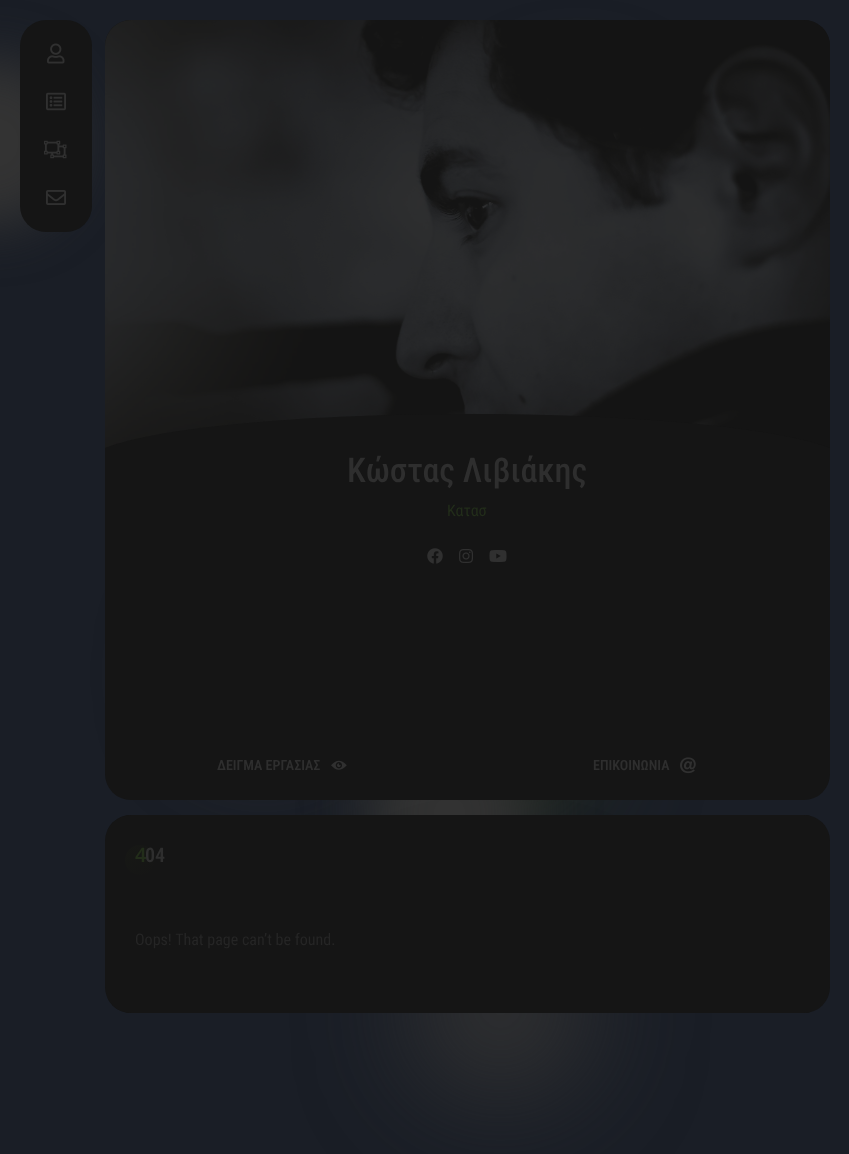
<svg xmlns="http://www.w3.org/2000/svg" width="849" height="1154">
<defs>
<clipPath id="clip1"><rect x="105" y="815" width="725" height="198" rx="26"/></clipPath>
<linearGradient id="g1" gradientUnits="userSpaceOnUse" x1="125" y1="845" x2="155" y2="875"><stop offset="0" stop-color="#171815"/><stop offset="1" stop-color="#151515"/></linearGradient>
</defs>
<rect width="100%" height="100%" fill="#1a1e26"/>
<rect x="-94" y="58" width="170" height="169" rx="84.5" fill="#333" filter="blur(26px)"/>
<rect x="492" y="69" width="170" height="170" rx="85" fill="#333" filter="blur(31px)"/>
<rect x="178" y="589" width="170" height="169" rx="84.5" fill="#333" filter="blur(38.5px)"/>
<rect x="416" y="646" width="170" height="170" rx="85" fill="#222d1a" filter="blur(55.5px)"/>
<rect x="365" y="727" width="169" height="170" rx="84.5" fill="#333" filter="blur(30.5px)"/>
<rect x="416" y="923" width="169" height="170" rx="84.5" fill="#333" filter="blur(57px)"/>
<rect x="20" y="20" width="72" height="212" rx="26" fill="#151515"/>
<image x="47" y="43" width="18" height="21" href="media/1.png"/>
<image x="46" y="92" width="20" height="19" href="media/2.png"/>
<image x="44" y="140" width="23" height="19" href="media/3.png"/>
<image x="46" y="190" width="20" height="15" href="media/4.png"/>
<rect x="105" y="20" width="725" height="780" rx="26" fill="#151515"/>
<image x="105" y="20" width="725" height="428" href="media/5.png"/>
<path d="M468 414c168 0 311 14 362 34v66h-725v-66c51-20 194-34 363-34z" fill="#151515"/>
<text x="347" y="482" style="font-family:Roboto Condensed;font-size:34px;font-weight:500;fill:#2e2e2e">Κώστας Λιβιάκης</text>
<text x="447" y="516" style="font-family:Roboto Condensed;font-size:16px;fill:#222d1a">Κατασ</text>
<image x="427" y="548" width="16" height="16" href="media/6.png"/>
<image x="459" y="549" width="15" height="14" href="media/7.png"/>
<image x="489" y="550" width="18" height="12" href="media/8.png"/>
<text x="217" y="770" style="font-family:Roboto Condensed;font-size:14px;font-weight:600;fill:#2e2e2e">ΔΕΙΓΜΑ ΕΡΓΑΣΙΑΣ</text>
<image x="331" y="760" width="16" height="10" href="media/9.png"/>
<text x="593" y="770" style="font-family:Roboto Condensed;font-size:14px;font-weight:600;fill:#2e2e2e">ΕΠΙΚΟΙΝΩΝΙΑ</text>
<image x="680" y="757" width="16" height="17" href="media/10.png"/>
<rect x="105" y="815" width="725" height="198" rx="26" fill="#151515"/>
<g clip-path="url(#clip1)">
<rect x="107" y="815" width="703" height="15" fill="#151515"/>
</g>
<circle cx="140" cy="860" r="15" fill="url(#g1)"/>
<text x="135" y="862" style="font-family:Noto Sans;font-size:20px;font-weight:600;fill:#222d1a">4</text>
<text x="145" y="862" style="font-family:Roboto Condensed;font-size:20px;font-weight:600;fill:#2e2e2e">04</text>
<text x="135" y="945" style="font-family:Roboto Condensed;font-size:16px;fill:#252525">Oops! That page can’t be found.</text>
<g clip-path="url(#clip1)">
<rect x="107" y="998" width="703" height="15" fill="#151515"/>
</g>
</svg>
